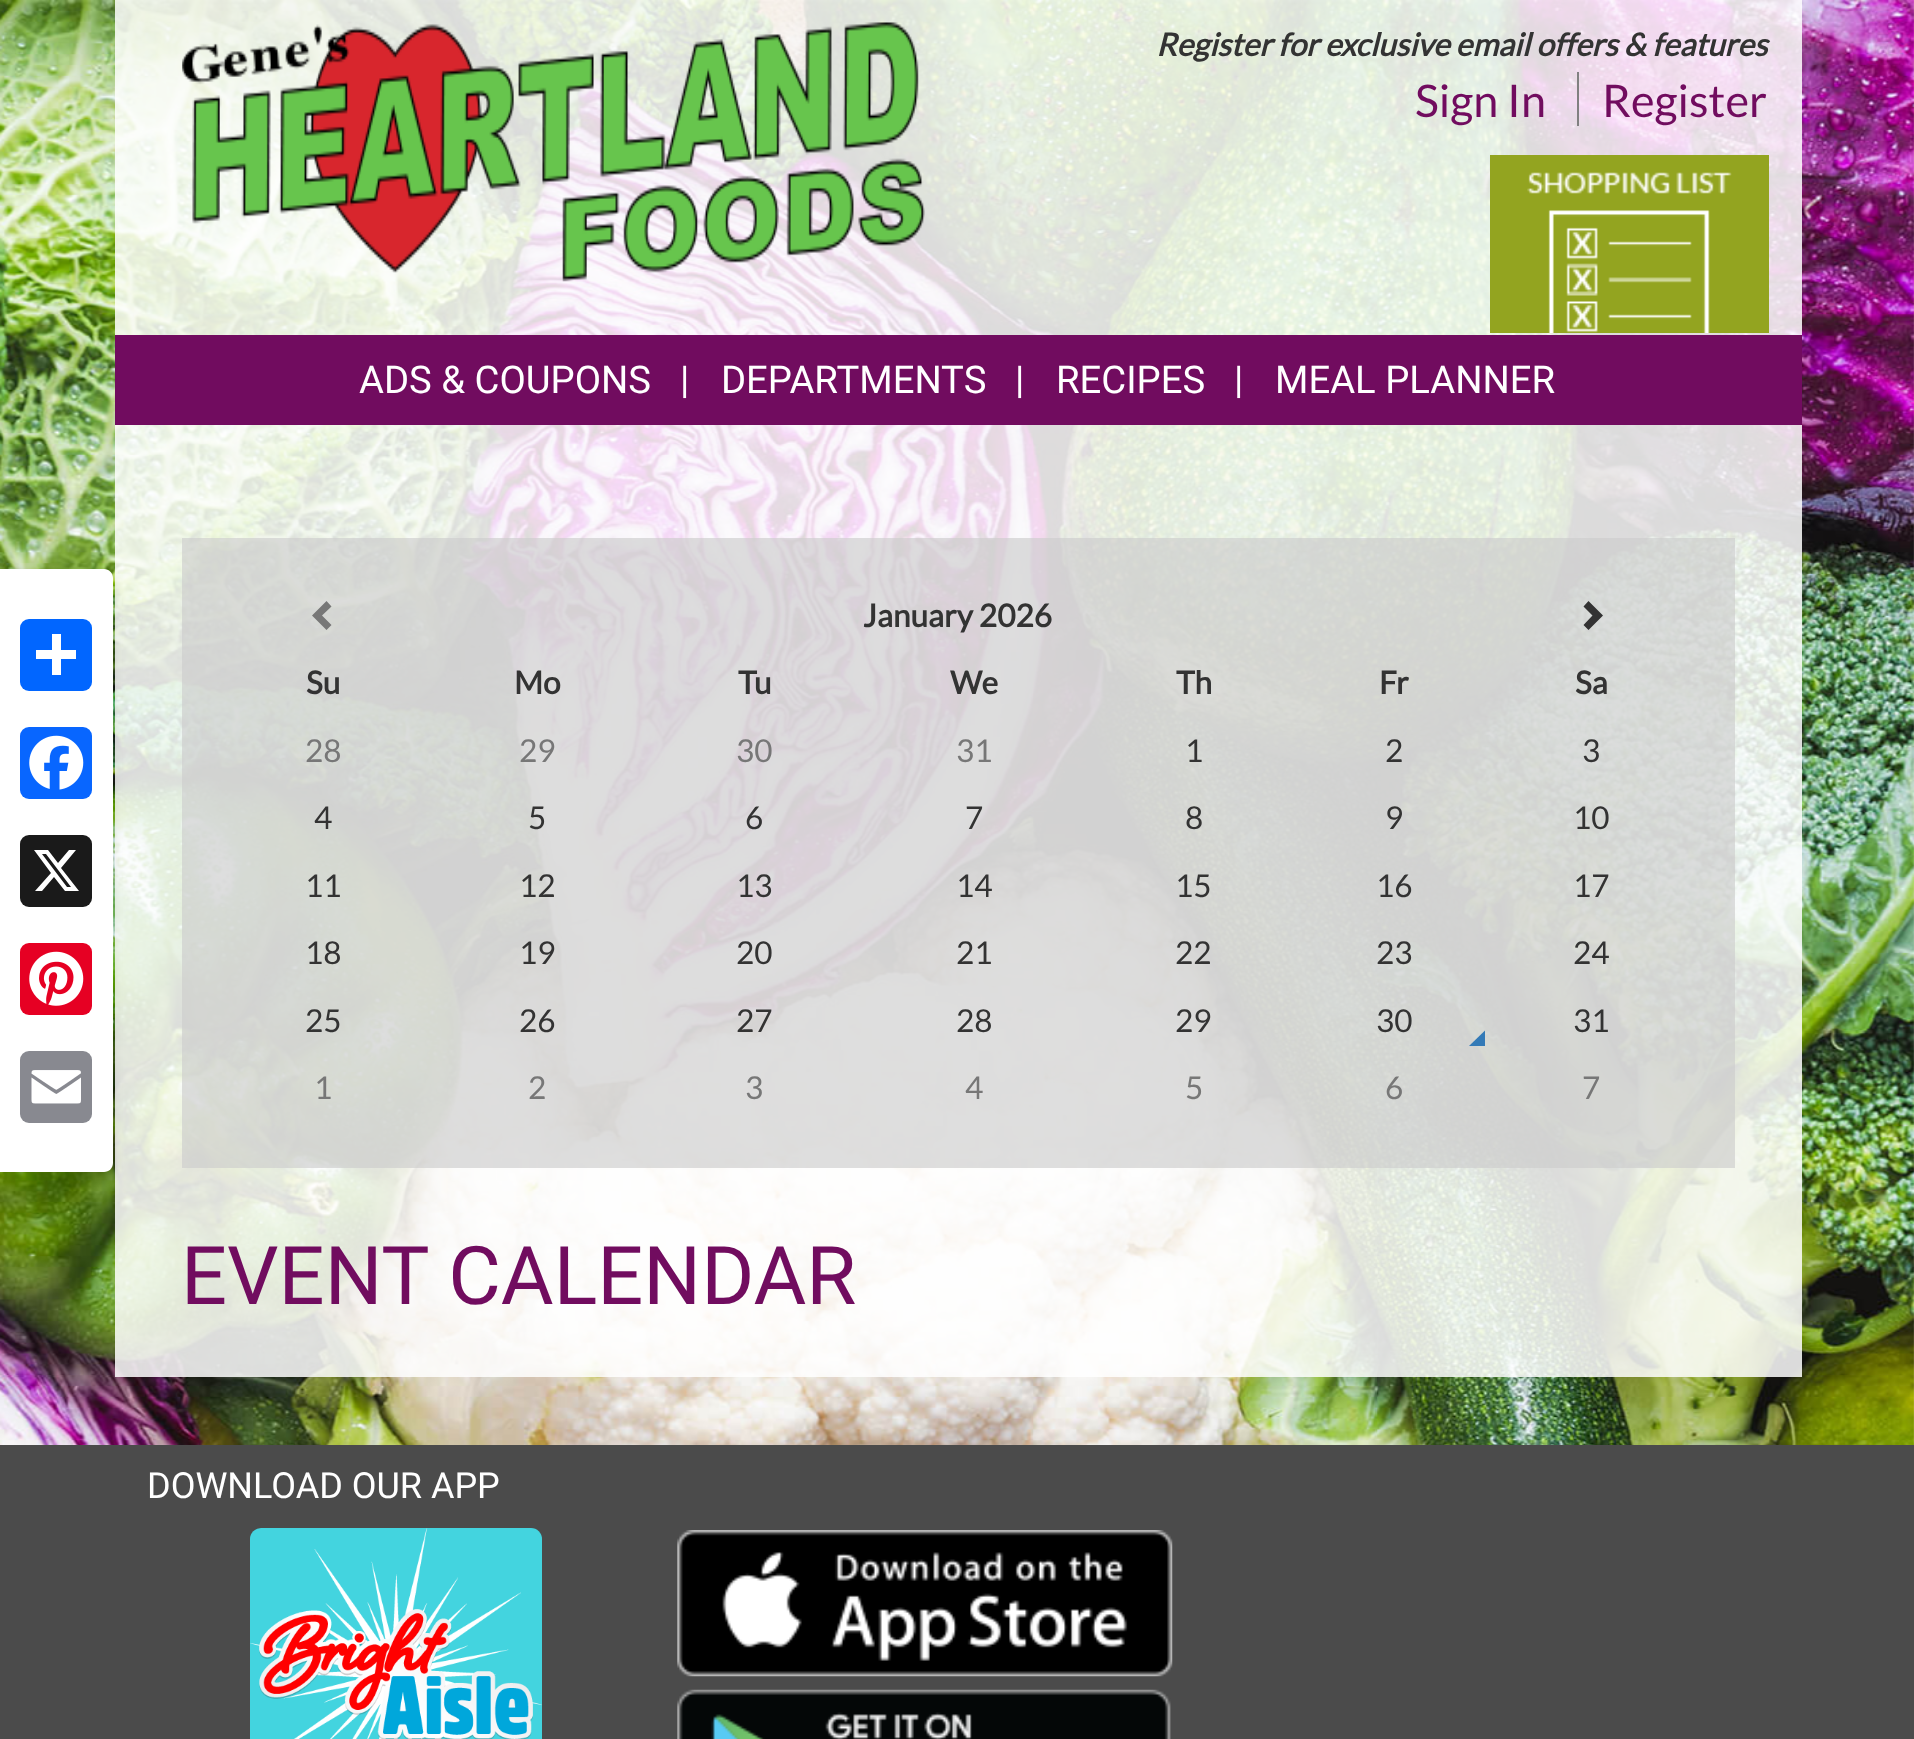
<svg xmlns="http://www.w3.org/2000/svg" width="1914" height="1739">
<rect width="100%" height="100%" fill="#fff"/>
<image x="0" y="0" width="1914" height="1445" href="media/1.png"/>
<rect x="115" y="425" width="1687" height="952" fill="#ffffffd9"/>
<rect y="574" width="113" height="603" rx="9" fill="#0000001a" filter="blur(5.5px)"/>
<path d="M0 569h104c5 0 9 4 9 9v585c0 5-4 9-9 9h-104z" fill="#fff"/>
<rect x="20" y="619" width="72" height="72" rx="9" fill="#0166ff"/>
<rect x="52" y="634" width="9" height="41" fill="#fff"/>
<rect x="36" y="650" width="40" height="9" fill="#fff"/>
<rect x="20" y="727" width="72" height="72" rx="9" fill="#0866ff"/>
<image x="29" y="735" width="55" height="55" href="media/2.png"/>
<rect x="20" y="835" width="72" height="72" rx="9" fill="#1a1a1a"/>
<path d="M69 850h7l-15 18l18 23h-14l-11-14l-12 14h-7l16-18l-17-23h14l10 13zm-2 37h4l-25-33h-4z" fill="#fff"/>
<rect x="20" y="943" width="72" height="72" rx="9" fill="#e60023"/>
<image x="29" y="951" width="55" height="55" href="media/3.png"/>
<rect x="20" y="1051" width="72" height="72" rx="9" fill="#888990"/>
<image x="31" y="1070" width="50" height="34" href="media/4.png"/>
<rect x="115" width="1687" height="335" fill="#ffffffd9"/>
<image x="182" y="22" width="743" height="260" href="media/5.png"/>
<text x="1156" y="56" style="font-family:Lato;font-size:31.5px;font-weight:bold;font-style:italic;fill:#333">Register for exclusive email offers &amp; features</text>
<text x="1415" y="117" style="font-family:Lato;font-size:45px;fill:#710c5f">Sign In</text>
<rect x="1577" y="72" width="2" height="54" fill="#808080"/>
<text x="1602" y="117" style="font-family:Lato;font-size:45px;fill:#710c5f">Register</text>
<rect x="1490" y="155" width="279" height="178" fill="#93a420"/>
<image x="1527" y="172" width="205" height="161" href="media/6.png"/>
<rect x="115" y="335" width="1687" height="90" fill="#710c5f"/>
<text x="359" y="393" style="font-family:Roboto;font-size:38.25px;fill:#fff">ADS &amp; COUPONS</text>
<text x="680" y="393" style="font-family:Roboto;font-size:38.25px;fill:#fff">|</text>
<text x="721" y="393" style="font-family:Roboto;font-size:38.25px;fill:#fff">DEPARTMENTS</text>
<text x="1015" y="393" style="font-family:Roboto;font-size:38.25px;fill:#fff">|</text>
<text x="1056" y="393" style="font-family:Roboto;font-size:38.25px;fill:#fff">RECIPES</text>
<text x="1234" y="393" style="font-family:Roboto;font-size:38.25px;fill:#fff">|</text>
<text x="1275" y="393" style="font-family:Roboto;font-size:38.25px;fill:#fff">MEAL PLANNER</text>
<rect x="182" y="538" width="1553" height="630" fill="#cccccca6"/>
<path d="M331.5 606.5l-9.5 9l9.5 9.5l-5 5l-14.5-14.5l14.5-14.5z" fill="#777"/>
<text x="863" y="627" style="font-family:Lato;font-size:31.5px;font-weight:bold;fill:#333">January 2026</text>
<path d="M1603 615.5l-14.5 14.5l-5-5l9-9.5l-9-9l5-5.5z" fill="#333"/>
<text x="306" y="694" style="font-family:Lato;font-size:31.5px;font-weight:bold;fill:#333">Su</text>
<text x="514" y="694" style="font-family:Lato;font-size:31.5px;font-weight:bold;fill:#333">Mo</text>
<text x="738" y="694" style="font-family:Lato;font-size:31.5px;font-weight:bold;fill:#333">Tu</text>
<text x="950" y="694" style="font-family:Lato;font-size:31.5px;font-weight:bold;fill:#333">We</text>
<text x="1176" y="694" style="font-family:Lato;font-size:31.5px;font-weight:bold;fill:#333">Th</text>
<text x="1379" y="694" style="font-family:Lato;font-size:31.5px;font-weight:bold;fill:#333">Fr</text>
<text x="1575" y="694" style="font-family:Lato;font-size:31.5px;font-weight:bold;fill:#333">Sa</text>
<text x="305" y="762" style="font-family:Lato;font-size:31.5px;fill:#777">28</text>
<text x="519" y="762" style="font-family:Lato;font-size:31.5px;fill:#777">29</text>
<text x="736" y="762" style="font-family:Lato;font-size:31.5px;fill:#777">30</text>
<text x="956" y="762" style="font-family:Lato;font-size:31.5px;fill:#777">31</text>
<text x="1185" y="762" style="font-family:Lato;font-size:31.5px;fill:#333">1</text>
<text x="1385" y="762" style="font-family:Lato;font-size:31.5px;fill:#333">2</text>
<text x="1582" y="762" style="font-family:Lato;font-size:31.5px;fill:#333">3</text>
<text x="314" y="829" style="font-family:Lato;font-size:31.5px;fill:#333">4</text>
<text x="528" y="829" style="font-family:Lato;font-size:31.5px;fill:#333">5</text>
<text x="745" y="829" style="font-family:Lato;font-size:31.5px;fill:#333">6</text>
<text x="965" y="829" style="font-family:Lato;font-size:31.5px;fill:#333">7</text>
<text x="1185" y="829" style="font-family:Lato;font-size:31.5px;fill:#333">8</text>
<text x="1385" y="829" style="font-family:Lato;font-size:31.5px;fill:#333">9</text>
<text x="1573" y="829" style="font-family:Lato;font-size:31.5px;fill:#333">10</text>
<text x="305" y="897" style="font-family:Lato;font-size:31.5px;fill:#333">11</text>
<text x="519" y="897" style="font-family:Lato;font-size:31.5px;fill:#333">12</text>
<text x="736" y="897" style="font-family:Lato;font-size:31.5px;fill:#333">13</text>
<text x="956" y="897" style="font-family:Lato;font-size:31.5px;fill:#333">14</text>
<text x="1175" y="897" style="font-family:Lato;font-size:31.5px;fill:#333">15</text>
<text x="1376" y="897" style="font-family:Lato;font-size:31.5px;fill:#333">16</text>
<text x="1573" y="897" style="font-family:Lato;font-size:31.5px;fill:#333">17</text>
<text x="305" y="964" style="font-family:Lato;font-size:31.5px;fill:#333">18</text>
<text x="519" y="964" style="font-family:Lato;font-size:31.5px;fill:#333">19</text>
<text x="736" y="964" style="font-family:Lato;font-size:31.5px;fill:#333">20</text>
<text x="956" y="964" style="font-family:Lato;font-size:31.5px;fill:#333">21</text>
<text x="1175" y="964" style="font-family:Lato;font-size:31.5px;fill:#333">22</text>
<text x="1376" y="964" style="font-family:Lato;font-size:31.5px;fill:#333">23</text>
<text x="1573" y="964" style="font-family:Lato;font-size:31.5px;fill:#333">24</text>
<text x="305" y="1032" style="font-family:Lato;font-size:31.5px;fill:#333">25</text>
<text x="519" y="1032" style="font-family:Lato;font-size:31.5px;fill:#333">26</text>
<text x="736" y="1032" style="font-family:Lato;font-size:31.5px;fill:#333">27</text>
<text x="956" y="1032" style="font-family:Lato;font-size:31.5px;fill:#333">28</text>
<text x="1175" y="1032" style="font-family:Lato;font-size:31.5px;fill:#333">29</text>
<text x="1376" y="1032" style="font-family:Lato;font-size:31.5px;fill:#333">30</text>
<path d="M1485 1046h-16l16-15.5z" fill="#337ab7"/>
<text x="1573" y="1032" style="font-family:Lato;font-size:31.5px;fill:#333">31</text>
<text x="314" y="1099" style="font-family:Lato;font-size:31.5px;fill:#777">1</text>
<text x="528" y="1099" style="font-family:Lato;font-size:31.5px;fill:#777">2</text>
<text x="745" y="1099" style="font-family:Lato;font-size:31.5px;fill:#777">3</text>
<text x="965" y="1099" style="font-family:Lato;font-size:31.5px;fill:#777">4</text>
<text x="1185" y="1099" style="font-family:Lato;font-size:31.5px;fill:#777">5</text>
<text x="1385" y="1099" style="font-family:Lato;font-size:31.5px;fill:#777">6</text>
<text x="1582" y="1099" style="font-family:Lato;font-size:31.5px;fill:#777">7</text>
<text x="181" y="1304" style="font-family:Roboto;font-size:81px;fill:#710c5f">EVENT CALENDAR</text>
<rect y="1445" width="1914" height="294" fill="#4b4b4b"/>
<text x="147" y="1498" style="font-family:Roboto;font-size:36px;fill:#fff">DOWNLOAD OUR APP</text>
<rect x="250" y="1528" width="292" height="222" rx="11" fill="#43d4df"/>
<image x="250" y="1528" width="292" height="211" href="media/7.png"/>
<image x="677" y="1530" width="496" height="147" href="media/8.png"/>
<image x="677" y="1689" width="494" height="50" href="media/9.png"/>
</svg>
